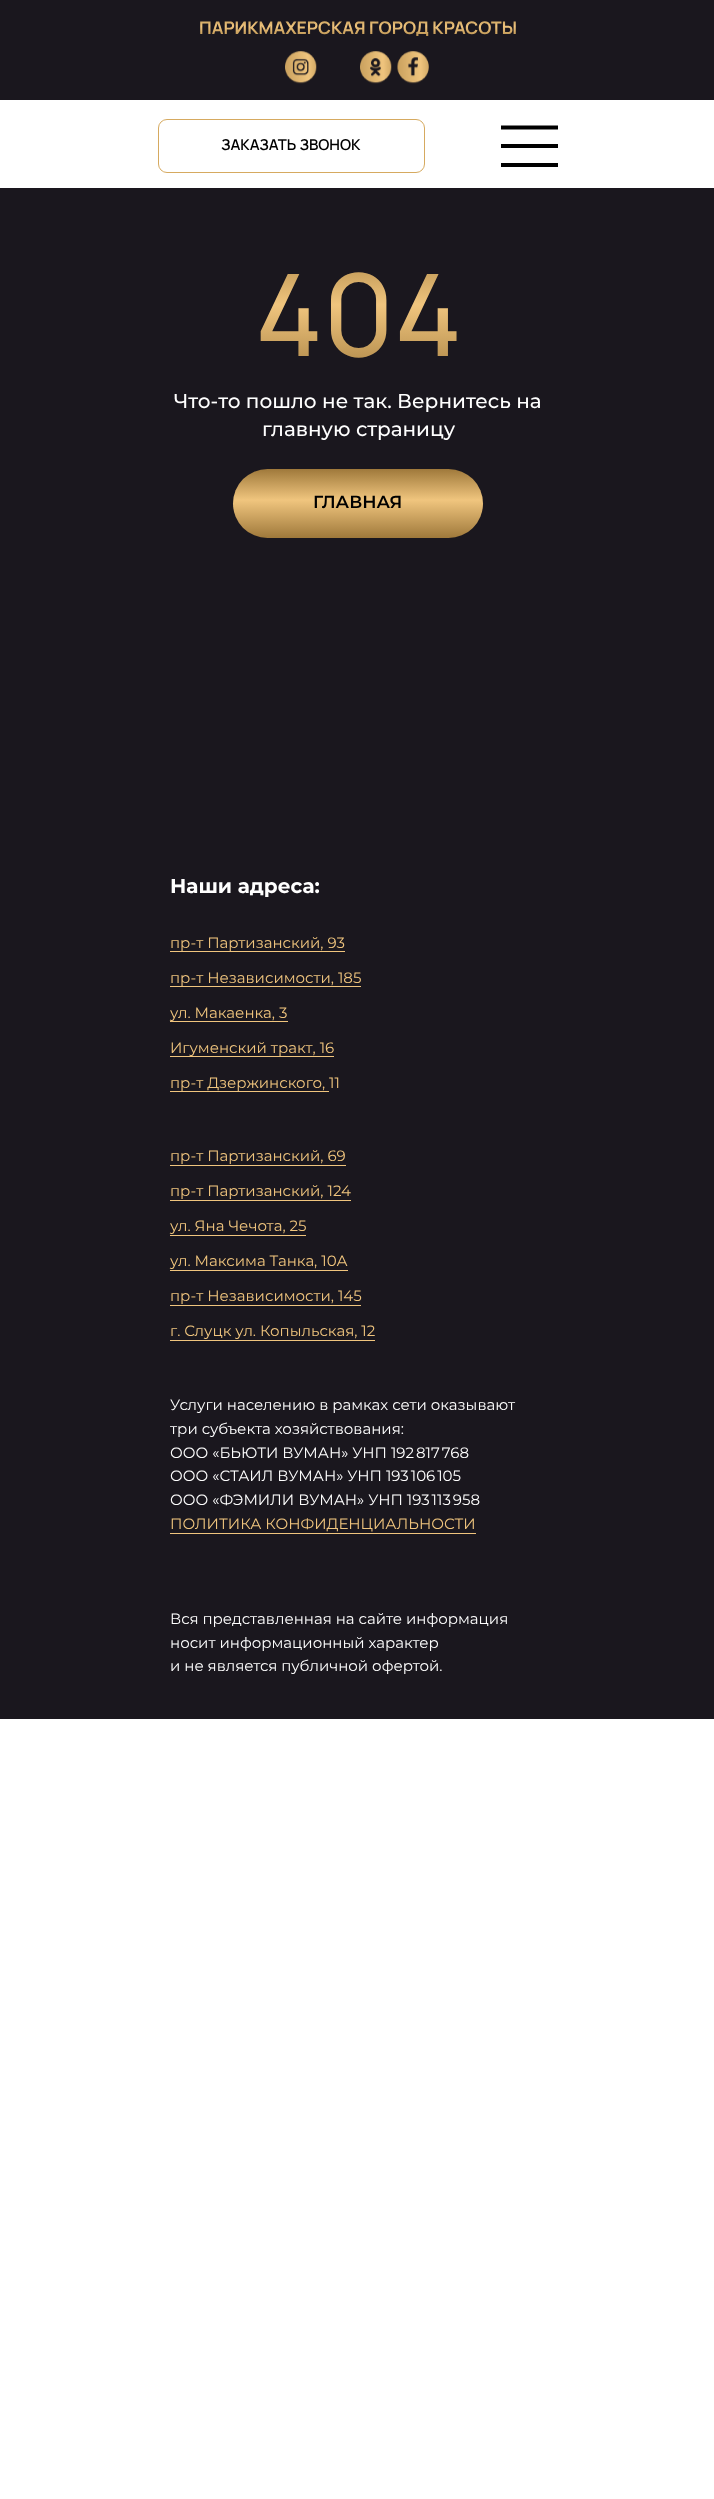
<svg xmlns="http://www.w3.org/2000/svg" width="714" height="2499">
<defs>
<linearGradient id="g1" gradientUnits="userSpaceOnUse" x1="358" y1="41" x2="358" y2="14"><stop offset="0" stop-color="#9f793b"/><stop offset="0.55" stop-color="#f0c57e"/><stop offset="1" stop-color="#9f793b"/></linearGradient>
<clipPath id="clip1"><rect x="501" y="118" width="57" height="56"/></clipPath>
<linearGradient id="g2" gradientUnits="userSpaceOnUse" x1="358" y1="390" x2="358" y2="235"><stop offset="0" stop-color="#9f793b"/><stop offset="0.55" stop-color="#f0c57e"/><stop offset="1" stop-color="#9f793b"/></linearGradient>
<linearGradient id="g3" gradientUnits="userSpaceOnUse" x1="358" y1="538" x2="358" y2="469"><stop offset="0" stop-color="#9f793b"/><stop offset="0.55" stop-color="#f0c57e"/><stop offset="1" stop-color="#9f793b"/></linearGradient>
</defs>
<rect width="100%" height="100%" fill="#fff"/>
<rect width="714" height="100" fill="#1a171e"/>
<text x="199" y="34" style="font-family:Manrope;font-size:17.5px;font-weight:bold;fill:url(#g1)">ПАРИКМАХЕРСКАЯ ГОРОД КРАСОТЫ</text>
<image x="285" y="51" width="32" height="33" href="media/1.png"/>
<image x="360" y="51" width="32" height="33" href="media/2.png"/>
<image x="397" y="51" width="32" height="33" href="media/3.png"/>
<rect x="158.5" y="119.5" width="266" height="53" rx="8.5" fill="none" stroke="#d6aa60"/>
<text x="221" y="150" style="font-family:Manrope;font-size:15px;font-weight:600;fill:#000">ЗАКАЗАТЬ ЗВОНОК</text>
<g clip-path="url(#clip1)">
<path d="M501.5 127.5h56.5m-56.5 18.5h56.5m-56.5 19h56.5" fill="none" stroke="#000" stroke-width="4.2" stroke-linecap="round" stroke-linejoin="round"/>
</g>
<rect y="188" width="714" height="1531" fill="#1a171e"/>
<text x="255" y="356" style="font-family:Manrope;font-size:114px;font-weight:500;fill:url(#g2)">404</text>
<text x="174" y="408" style="font-family:Montserrat;font-size:20px;font-weight:500;fill:#fff">Что-то пошло не так. Вернитесь на</text>
<text x="262" y="436" style="font-family:Montserrat;font-size:20px;font-weight:500;fill:#fff">главную страницу</text>
<rect x="233" y="469" width="250" height="69" rx="34.5" fill="url(#g3)"/>
<text x="313" y="508" style="font-family:Montserrat;font-size:17.5px;font-weight:600;fill:#000">ГЛАВНАЯ</text>
<text x="170" y="893" style="font-family:Montserrat;font-size:20px;font-weight:bold;fill:#fff">Наши адреса:</text>
<text x="170" y="948" style="font-family:Montserrat;font-size:15px;fill:#f0c57e">пр-т Партизанский, 93</text>
<rect x="170" y="951" width="175" height="1" fill="#f0c57e"/>
<text x="170" y="983" style="font-family:Montserrat;font-size:15px;fill:#f0c57e">пр-т Независимости, 185</text>
<rect x="170" y="986" width="191" height="1" fill="#f0c57e"/>
<text x="170" y="1018" style="font-family:Montserrat;font-size:15px;fill:#f0c57e">ул. Макаенка, 3</text>
<rect x="170" y="1021" width="118" height="1" fill="#f0c57e"/>
<text x="170" y="1053" style="font-family:Montserrat;font-size:15px;fill:#f0c57e">Игуменский тракт, 16</text>
<rect x="170" y="1056" width="164" height="1" fill="#f0c57e"/>
<text x="170" y="1088" style="font-family:Montserrat;font-size:15px;fill:#f0c57e">пр-т Дзержинского, 11</text>
<rect x="170" y="1091" width="159" height="1" fill="#f0c57e"/>
<text x="170" y="1161" style="font-family:Montserrat;font-size:15px;fill:#f0c57e">пр-т Партизанский, 69</text>
<rect x="170" y="1165" width="176" height="1" fill="#f0c57e"/>
<text x="170" y="1196" style="font-family:Montserrat;font-size:15px;fill:#f0c57e">пр-т Партизанский, 124</text>
<rect x="170" y="1200" width="181" height="1" fill="#f0c57e"/>
<text x="170" y="1231" style="font-family:Montserrat;font-size:15px;fill:#f0c57e">ул. Яна Чечота, 25</text>
<rect x="170" y="1235" width="136" height="1" fill="#f0c57e"/>
<text x="170" y="1266" style="font-family:Montserrat;font-size:15px;fill:#f0c57e">ул. Максима Танка, 10А</text>
<rect x="170" y="1270" width="178" height="1" fill="#f0c57e"/>
<text x="170" y="1301" style="font-family:Montserrat;font-size:15px;fill:#f0c57e">пр-т Независимости, 145</text>
<rect x="170" y="1305" width="191" height="1" fill="#f0c57e"/>
<text x="170" y="1336" style="font-family:Montserrat;font-size:15px;fill:#f0c57e">г. Слуцк ул. Копыльская, 12</text>
<rect x="170" y="1340" width="205" height="1" fill="#f0c57e"/>
<text x="170" y="1410" style="font-family:Montserrat;font-size:15px;fill:#fff">Услуги населению в рамках сети оказывают</text>
<text x="170" y="1434" style="font-family:Montserrat;font-size:15px;fill:#fff">три субъекта хозяйствования:</text>
<text x="170" y="1458" style="font-family:Montserrat;font-size:15px;fill:#fff">ООО «БЬЮТИ ВУМАН» УНП 192 817 768</text>
<text x="170" y="1481" style="font-family:Montserrat;font-size:15px;fill:#fff">ООО «СТАИЛ ВУМАН» УНП 193 106 105</text>
<text x="170" y="1505" style="font-family:Montserrat;font-size:15px;fill:#fff">ООО «ФЭМИЛИ ВУМАН» УНП 193 113 958</text>
<text x="170" y="1529" style="font-family:Montserrat;font-size:15px;fill:#f0c57e">ПОЛИТИКА КОНФИДЕНЦИАЛЬНОСТИ</text>
<rect x="170" y="1533" width="306" height="1" fill="#f0c57e"/>
<text x="170" y="1624" style="font-family:Montserrat;font-size:15px;fill:#fff">Вся представленная на сайте информация</text>
<text x="170" y="1648" style="font-family:Montserrat;font-size:15px;fill:#fff">носит информационный характер</text>
<text x="170" y="1671" style="font-family:Montserrat;font-size:15px;fill:#fff">и не является публичной офертой.</text>
</svg>
